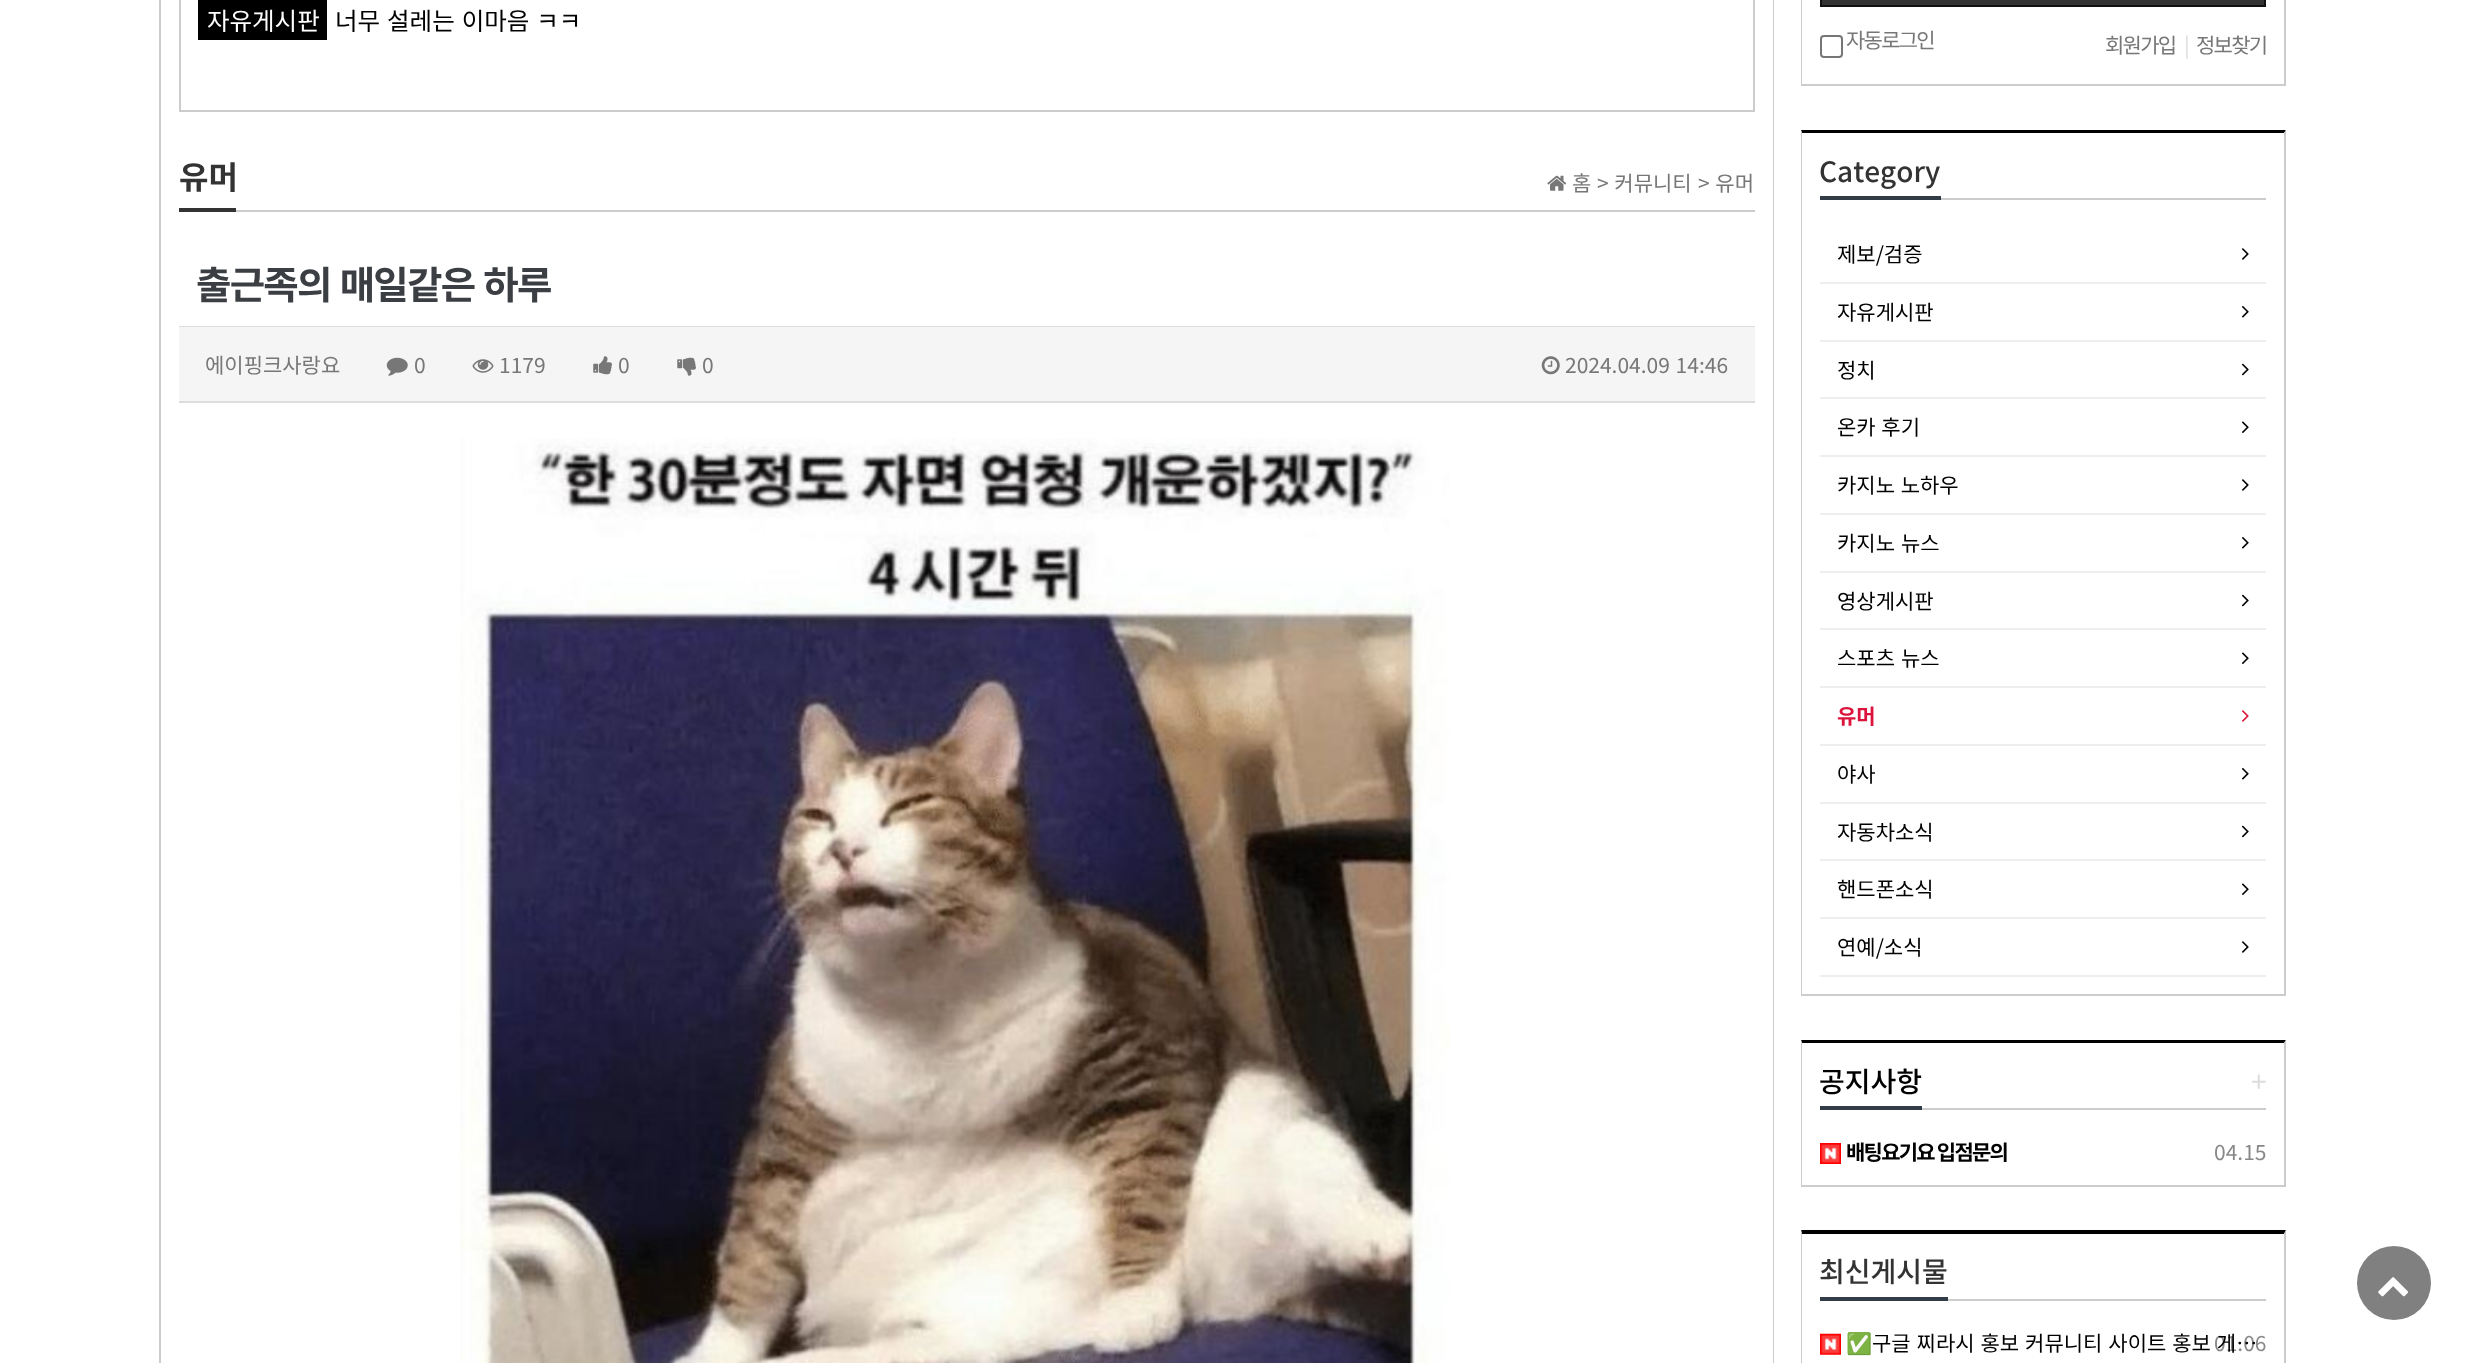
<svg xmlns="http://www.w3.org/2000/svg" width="2470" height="1363">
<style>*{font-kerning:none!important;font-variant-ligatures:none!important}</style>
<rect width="100%" height="100%" fill="#fff"/>
<path d="M1774-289v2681l-1-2v-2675z" fill="#ccc"/>
<path d="M159 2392v-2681l2 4v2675z" fill="#ccc"/>
<rect x="180" y="-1" width="1574" height="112" fill="none" stroke="#ccc" stroke-width="2"/>
<rect x="198" width="129" height="40" fill="#000"/>
<text x="207" y="30" style="font-family:Noto Sans KR;font-size:24.5px;fill:#fff">자유게시판</text>
<text x="335" y="30" word-spacing="1.5" style="font-family:Noto Sans KR;font-size:24.5px;fill:#000">너무 설레는 이마음 ㅋㅋ</text>
<rect x="236" y="210" width="1519" height="2" fill="#ccc"/>
<rect x="179" y="208" width="57" height="4" fill="#333"/>
<text x="179" y="189" style="font-family:Noto Sans KR;font-size:32px;font-weight:bold;fill:#333">유머</text>
<image x="1547" y="175" width="20" height="16" href="media/1.png"/>
<text x="1572" y="191" style="font-family:Noto Sans KR;font-size:21px;fill:#777">홈</text>
<text x="1597" y="191" word-spacing="1" style="font-family:Noto Sans KR;font-size:21px;fill:#777">&gt; 커뮤니티</text>
<text x="1698" y="191" word-spacing="1" style="font-family:Noto Sans KR;font-size:21px;fill:#777">&gt; 유머</text>
<text x="196" y="299" word-spacing="2" style="font-family:Noto Sans KR;font-size:38.5px;font-weight:bold;letter-spacing:-1.75px;fill:#3b3e43">출근족의 매일같은 하루</text>
<rect x="179" y="326" width="1576" height="1" fill="#ddd"/>
<rect x="179" y="327" width="1576" height="74" fill="#f5f5f5"/>
<rect x="179" y="401" width="1576" height="2" fill="#ddd"/>
<text x="205" y="373" style="font-family:Noto Sans KR;font-size:21px;fill:#777">에이핑크사랑요</text>
<image x="386" y="357" width="22" height="19" href="media/2.png"/>
<text x="414" y="373" style="font-family:Noto Sans KR;font-size:21px;fill:#777">0</text>
<image x="472" y="359" width="22" height="14" href="media/3.png"/>
<text x="499" y="373" style="font-family:Noto Sans KR;font-size:21px;fill:#777">1179</text>
<image x="593" y="356" width="19" height="19" href="media/4.png"/>
<text x="618" y="373" style="font-family:Noto Sans KR;font-size:21px;fill:#777">0</text>
<image x="677" y="357" width="19" height="19" href="media/5.png"/>
<text x="702" y="373" style="font-family:Noto Sans KR;font-size:21px;fill:#777">0</text>
<image x="1541" y="356" width="19" height="19" href="media/6.png"/>
<text x="1565" y="373" word-spacing="1" style="font-family:Noto Sans KR;font-size:21px;fill:#777">2024.04.09 14:46</text>
<image x="460" y="438" width="990" height="925" href="media/7.png"/>
<path d="M2286-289v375l-2-2v-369z" fill="#ccc"/>
<rect x="1801" y="84" width="485" height="2" fill="#ccc"/>
<path d="M1801 86v-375l1 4v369z" fill="#ccc"/>
<rect x="1821" y="-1" width="444" height="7" fill="#333" stroke="#111" stroke-width="2"/>
<rect x="1821" y="36" width="21" height="21" rx="3" fill="none" stroke="#767676" stroke-width="2"/>
<text x="1846" y="48" style="font-family:Noto Sans KR;font-size:21px;letter-spacing:-1.75px;fill:#777">자동로그인</text>
<text x="2105" y="53" style="font-family:Noto Sans KR;font-size:21px;letter-spacing:-1.75px;fill:#777">회원가입</text>
<text x="2184" y="53" style="font-family:Noto Sans KR;font-size:21px;letter-spacing:-1.75px;fill:#ddd">|</text>
<text x="2196" y="53" style="font-family:Noto Sans KR;font-size:21px;letter-spacing:-1.75px;fill:#777">정보찾기</text>
<path d="M1801 130h485l-2 3h-482z" fill="#000"/>
<path d="M2286 130v866l-2-2v-861z" fill="#ccc"/>
<rect x="1801" y="994" width="485" height="2" fill="#ccc"/>
<path d="M1801 996v-866l1 3v861z" fill="#ccc"/>
<rect x="1941" y="198" width="325" height="2" fill="#ccc"/>
<rect x="1820" y="196" width="121" height="4" fill="#323c46"/>
<text x="1819" y="182" style="font-family:Noto Sans KR;font-size:28px;font-weight:500;fill:#333">Category</text>
<rect x="1820" y="282" width="446" height="2" fill="#eee"/>
<text x="1837" y="262" style="font-family:Noto Sans KR;font-size:21px;fill:#000">제보/검증</text>
<image x="2242" y="248" width="7" height="12" href="media/8.png"/>
<rect x="1820" y="340" width="446" height="2" fill="#eee"/>
<text x="1837" y="320" style="font-family:Noto Sans KR;font-size:21px;fill:#000">자유게시판</text>
<image x="2241" y="306" width="8" height="12" href="media/9.png"/>
<rect x="1820" y="397" width="446" height="2" fill="#eee"/>
<text x="1837" y="378" style="font-family:Noto Sans KR;font-size:21px;fill:#000">정치</text>
<image x="2241" y="363" width="8" height="13" href="media/10.png"/>
<rect x="1820" y="455" width="446" height="2" fill="#eee"/>
<text x="1837" y="435" word-spacing="1" style="font-family:Noto Sans KR;font-size:21px;fill:#000">온카 후기</text>
<image x="2241" y="421" width="8" height="12" href="media/11.png"/>
<rect x="1820" y="513" width="446" height="2" fill="#eee"/>
<text x="1837" y="493" word-spacing="1" style="font-family:Noto Sans KR;font-size:21px;fill:#000">카지노 노하우</text>
<image x="2242" y="479" width="7" height="12" href="media/8.png"/>
<rect x="1820" y="571" width="446" height="2" fill="#eee"/>
<text x="1837" y="551" word-spacing="1.25" style="font-family:Noto Sans KR;font-size:21px;fill:#000">카지노 뉴스</text>
<image x="2241" y="537" width="8" height="12" href="media/9.png"/>
<rect x="1820" y="628" width="446" height="2" fill="#eee"/>
<text x="1837" y="609" style="font-family:Noto Sans KR;font-size:21px;fill:#000">영상게시판</text>
<image x="2241" y="594" width="8" height="13" href="media/10.png"/>
<rect x="1820" y="686" width="446" height="2" fill="#eee"/>
<text x="1837" y="666" word-spacing="1.25" style="font-family:Noto Sans KR;font-size:21px;fill:#000">스포츠 뉴스</text>
<image x="2241" y="652" width="8" height="12" href="media/11.png"/>
<rect x="1820" y="744" width="446" height="2" fill="#eee"/>
<text x="1837" y="724" style="font-family:Noto Sans KR;font-size:21px;font-weight:bold;fill:#dc143c">유머</text>
<image x="2242" y="710" width="7" height="12" href="media/12.png"/>
<rect x="1820" y="802" width="446" height="2" fill="#eee"/>
<text x="1837" y="782" style="font-family:Noto Sans KR;font-size:21px;fill:#000">야사</text>
<image x="2241" y="768" width="8" height="12" href="media/9.png"/>
<rect x="1820" y="859" width="446" height="2" fill="#eee"/>
<text x="1837" y="840" style="font-family:Noto Sans KR;font-size:21px;fill:#000">자동차소식</text>
<image x="2241" y="825" width="8" height="13" href="media/10.png"/>
<rect x="1820" y="917" width="446" height="2" fill="#eee"/>
<text x="1837" y="897" style="font-family:Noto Sans KR;font-size:21px;fill:#000">핸드폰소식</text>
<image x="2241" y="883" width="8" height="12" href="media/11.png"/>
<rect x="1820" y="975" width="446" height="2" fill="#eee"/>
<text x="1837" y="955" style="font-family:Noto Sans KR;font-size:21px;fill:#000">연예/소식</text>
<image x="2242" y="941" width="7" height="12" href="media/8.png"/>
<path d="M1801 1040h485l-2 3h-482z" fill="#000"/>
<path d="M2286 1040v146l-2-1v-142z" fill="#ccc"/>
<rect x="1801" y="1185" width="485" height="2" fill="#ccc"/>
<path d="M1801 1186v-146l1 3v142z" fill="#ccc"/>
<rect x="1922" y="1108" width="344" height="2" fill="#ccc"/>
<rect x="1820" y="1106" width="102" height="4" fill="#323c46"/>
<text x="1819" y="1092" style="font-family:Noto Sans KR;font-size:28px;font-weight:500;fill:#000">공지사항</text>
<text x="2251" y="1092" style="font-family:Noto Sans KR;font-size:28px;fill:#ddd">+</text>
<image x="1820" y="1143" width="21" height="21" href="media/13.png"/>
<text x="1846" y="1160" style="font-family:Noto Sans KR;font-size:21px;font-weight:bold;letter-spacing:-1.75px;fill:#000">배팅요기요 입점문의</text>
<text x="2214" y="1160" style="font-family:Noto Sans KR;font-size:21px;fill:#888">04.15</text>
<path d="M1801 1230h485l-2 4h-482z" fill="#000"/>
<path d="M2286 1230v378l-2-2v-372z" fill="#ccc"/>
<path d="M1801 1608v-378l1 4v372z" fill="#ccc"/>
<rect x="1948" y="1299" width="318" height="2" fill="#ccc"/>
<rect x="1820" y="1297" width="128" height="4" fill="#323c46"/>
<text x="1819" y="1282" style="font-family:Noto Sans KR;font-size:28px;font-weight:500;fill:#333">최신게시물</text>
<image x="1820" y="1333" width="21" height="22" href="media/14.png"/>
<text x="1846" y="1351" style="font-family:Noto Color Emoji;font-size:21px;fill:#000">✅</text>
<text x="2214" y="1351" style="font-family:Noto Sans KR;font-size:21px;fill:#888">01.06</text>
<text x="1872" y="1351" word-spacing="1.25" style="font-family:Noto Sans KR;font-size:21px;fill:#000">구글 찌라시 홍보 커뮤니티 사이트 홍보 게…</text>
<circle cx="2394" cy="1283" r="37" fill="#808080"/>
<image x="2378" y="1277" width="30" height="20" href="media/15.png"/>
</svg>
